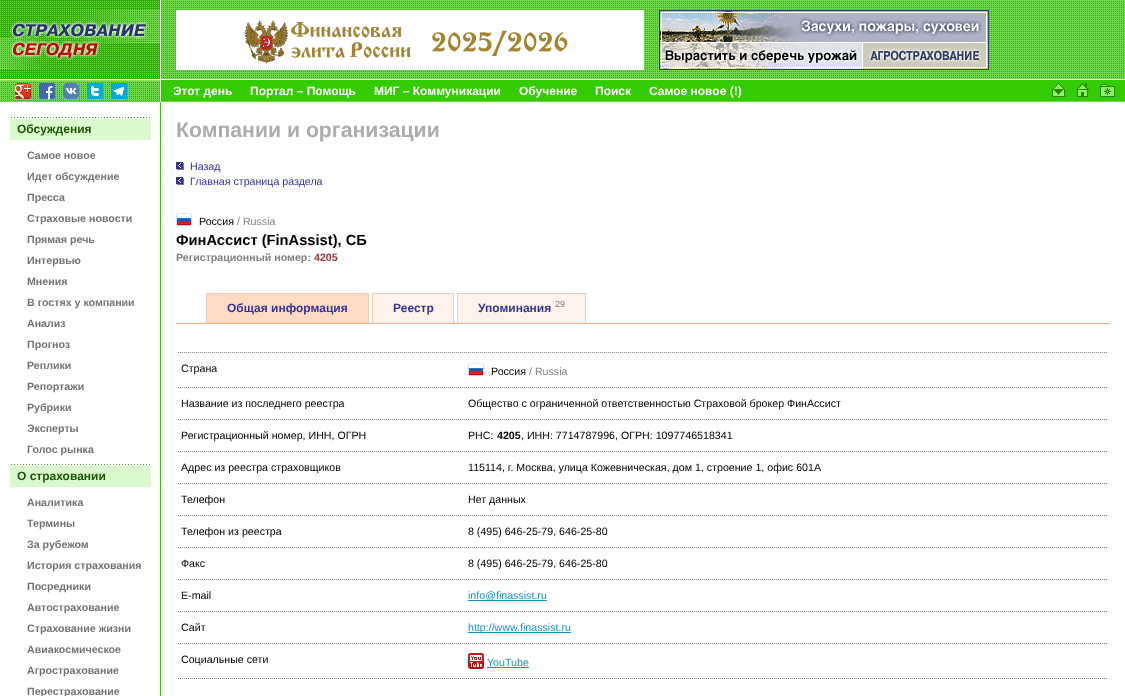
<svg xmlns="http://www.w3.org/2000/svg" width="1125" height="696">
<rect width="100%" height="100%" fill="#fff"/>
<image x="0" y="0" width="160" height="47" href="media/1.png"/>
<image x="0" y="47" width="160" height="33" href="media/2.png"/>
<rect y="80" width="160" height="1" fill="#95d856"/>
<image x="0" y="81" width="160" height="21" href="media/3.png"/>
<image x="15" y="83" width="16" height="16" href="media/4.png"/>
<image x="39" y="83" width="16" height="16" href="media/5.png"/>
<image x="63" y="83" width="16" height="16" href="media/6.png"/>
<image x="87" y="83" width="16" height="16" href="media/7.png"/>
<image x="111" y="83" width="16" height="16" href="media/8.png"/>
<rect x="161" width="964" height="102" fill="#6dd949"/>
<image x="161" y="1" width="963" height="77" href="media/9.png"/>
<image x="176" y="10" width="468" height="60" href="media/10.png"/>
<image x="659" y="10" width="330" height="60" href="media/11.png"/>
<rect x="161" y="79" width="964" height="1" fill="#fff"/>
<rect x="161" y="80" width="964" height="21" fill="#3c0"/>
<text x="173" y="95" style="font-family:Liberation Sans;font-size:12px;font-weight:bold;fill:#fff">Этот день</text>
<text x="250" y="95" style="font-family:Liberation Sans;font-size:12px;font-weight:bold;fill:#fff">Портал – Помощь</text>
<text x="374" y="95" style="font-family:Liberation Sans;font-size:12px;font-weight:bold;fill:#fff">МИГ – Коммуникации</text>
<text x="519" y="95" style="font-family:Liberation Sans;font-size:12px;font-weight:bold;fill:#fff">Обучение</text>
<text x="595" y="95" style="font-family:Liberation Sans;font-size:12px;font-weight:bold;fill:#fff">Поиск</text>
<text x="649" y="95" style="font-family:Liberation Sans;font-size:12px;font-weight:bold;fill:#fff">Самое новое (!)</text>
<image x="1052" y="83" width="13" height="14" href="media/12.png"/>
<image x="1076" y="83" width="13" height="14" href="media/13.png"/>
<image x="1100" y="84" width="15" height="13" href="media/14.png"/>
<image x="10" y="117" width="141" height="23" href="media/15.png"/>
<text x="17" y="133" style="font-family:Liberation Sans;font-size:12px;font-weight:bold;fill:#1b5502">Обсуждения</text>
<text x="27" y="159" style="font-family:Liberation Sans;font-size:10.65px;font-weight:bold;fill:#737373">Самое новое</text>
<text x="27" y="180" style="font-family:Liberation Sans;font-size:10.65px;font-weight:bold;fill:#737373">Идет обсуждение</text>
<text x="27" y="201" style="font-family:Liberation Sans;font-size:10.65px;font-weight:bold;fill:#737373">Пресса</text>
<text x="27" y="222" style="font-family:Liberation Sans;font-size:10.65px;font-weight:bold;fill:#737373">Страховые новости</text>
<text x="27" y="243" style="font-family:Liberation Sans;font-size:10.65px;font-weight:bold;fill:#737373">Прямая речь</text>
<text x="27" y="264" style="font-family:Liberation Sans;font-size:10.65px;font-weight:bold;fill:#737373">Интервью</text>
<text x="27" y="285" style="font-family:Liberation Sans;font-size:10.65px;font-weight:bold;fill:#737373">Мнения</text>
<text x="27" y="306" style="font-family:Liberation Sans;font-size:10.65px;font-weight:bold;fill:#737373">В гостях у компании</text>
<text x="27" y="327" style="font-family:Liberation Sans;font-size:10.65px;font-weight:bold;fill:#737373">Анализ</text>
<text x="27" y="348" style="font-family:Liberation Sans;font-size:10.65px;font-weight:bold;fill:#737373">Прогноз</text>
<text x="27" y="369" style="font-family:Liberation Sans;font-size:10.65px;font-weight:bold;fill:#737373">Реплики</text>
<text x="27" y="390" style="font-family:Liberation Sans;font-size:10.65px;font-weight:bold;fill:#737373">Репортажи</text>
<text x="27" y="411" style="font-family:Liberation Sans;font-size:10.65px;font-weight:bold;fill:#737373">Рубрики</text>
<text x="27" y="432" style="font-family:Liberation Sans;font-size:10.65px;font-weight:bold;fill:#737373">Эксперты</text>
<text x="27" y="453" style="font-family:Liberation Sans;font-size:10.65px;font-weight:bold;fill:#737373">Голос рынка</text>
<image x="10" y="464" width="141" height="23" href="media/15.png"/>
<text x="17" y="480" style="font-family:Liberation Sans;font-size:12px;font-weight:bold;fill:#1b5502">О страховании</text>
<text x="27" y="506" style="font-family:Liberation Sans;font-size:10.65px;font-weight:bold;fill:#737373">Аналитика</text>
<text x="27" y="527" style="font-family:Liberation Sans;font-size:10.65px;font-weight:bold;fill:#737373">Термины</text>
<text x="27" y="548" style="font-family:Liberation Sans;font-size:10.65px;font-weight:bold;fill:#737373">За рубежом</text>
<text x="27" y="569" style="font-family:Liberation Sans;font-size:10.65px;font-weight:bold;fill:#737373">История страхования</text>
<text x="27" y="590" style="font-family:Liberation Sans;font-size:10.65px;font-weight:bold;fill:#737373">Посредники</text>
<text x="27" y="611" style="font-family:Liberation Sans;font-size:10.65px;font-weight:bold;fill:#737373">Автострахование</text>
<text x="27" y="632" style="font-family:Liberation Sans;font-size:10.65px;font-weight:bold;fill:#737373">Страхование жизни</text>
<text x="27" y="653" style="font-family:Liberation Sans;font-size:10.65px;font-weight:bold;fill:#737373">Авиакосмическое</text>
<text x="27" y="674" style="font-family:Liberation Sans;font-size:10.65px;font-weight:bold;fill:#737373">Агрострахование</text>
<text x="27" y="695" style="font-family:Liberation Sans;font-size:10.65px;font-weight:bold;fill:#737373">Перестрахование</text>
<rect x="160" y="102" width="1" height="594" fill="#3c0"/>
<text x="176" y="137" style="font-family:Liberation Sans;font-size:21.25px;font-weight:bold;fill:#acacac">Компании и организации</text>
<image x="176" y="162" width="8" height="8" href="media/16.png"/>
<text x="190" y="170" style="font-family:Liberation Sans;font-size:10.65px;fill:#339">Назад</text>
<image x="176" y="177" width="8" height="8" href="media/16.png"/>
<text x="190" y="185" style="font-family:Liberation Sans;font-size:10.65px;fill:#339">Главная страница раздела</text>
<image x="176" y="213" width="16" height="14" href="media/17.png"/>
<text x="199" y="225" style="font-family:Liberation Sans;font-size:10.65px;fill:#000">Россия</text>
<text x="237" y="225" style="font-family:Liberation Sans;font-size:10.65px;fill:#808080">/ Russia</text>
<text x="176" y="245" style="font-family:Liberation Sans;font-size:14.7px;font-weight:bold;fill:#000">ФинАссист (FinAssist), СБ</text>
<text x="176" y="261" style="font-family:Liberation Sans;font-size:10.65px;font-weight:bold;fill:#808080">Регистрационный номер:</text>
<text x="314" y="261" style="font-family:Liberation Sans;font-size:10.65px;font-weight:bold;fill:#933">4205</text>
<rect x="207" y="294" width="161" height="29" fill="#ffdbc4"/>
<rect x="206" y="293" width="163" height="1" fill="#eeccb7"/>
<rect x="368" y="293" width="1" height="30" fill="#eeccb7"/>
<rect x="206" y="293" width="1" height="30" fill="#eeccb7"/>
<text x="227" y="312" style="font-family:Liberation Sans;font-size:12px;font-weight:bold;fill:#339">Общая информация</text>
<rect x="373" y="294" width="80" height="29" fill="#fff2e9"/>
<rect x="372" y="293" width="82" height="1" fill="#eeccb7"/>
<rect x="453" y="293" width="1" height="30" fill="#eeccb7"/>
<rect x="372" y="293" width="1" height="30" fill="#eeccb7"/>
<text x="393" y="312" style="font-family:Liberation Sans;font-size:12px;font-weight:bold;fill:#339">Реестр</text>
<rect x="458" y="294" width="127" height="29" fill="#fff2e9"/>
<rect x="457" y="293" width="129" height="1" fill="#eeccb7"/>
<rect x="585" y="293" width="1" height="30" fill="#eeccb7"/>
<rect x="457" y="293" width="1" height="30" fill="#eeccb7"/>
<text x="478" y="312" style="font-family:Liberation Sans;font-size:12px;font-weight:bold;fill:#339">Упоминания</text>
<text x="555" y="307" style="font-family:Liberation Sans;font-size:9px;fill:#808080">29</text>
<rect x="176" y="323" width="934" height="1" fill="#eeaf88"/>
<path d="M178 352.5h930" fill="none" stroke="#808080" stroke-dasharray="1 1"/>
<text x="181" y="372" style="font-family:Liberation Sans;font-size:10.65px;fill:#000">Страна</text>
<image x="468" y="363" width="16" height="14" href="media/17.png"/>
<text x="491" y="375" style="font-family:Liberation Sans;font-size:10.65px;fill:#000">Россия</text>
<text x="529" y="375" style="font-family:Liberation Sans;font-size:10.65px;fill:#808080">/ Russia</text>
<path d="M178 387.5h930" fill="none" stroke="#808080" stroke-dasharray="1 1"/>
<text x="181" y="407" style="font-family:Liberation Sans;font-size:10.65px;fill:#000">Название из последнего реестра</text>
<text x="468" y="407" style="font-family:Liberation Sans;font-size:10.65px;fill:#000">Общество с ограниченной ответственностью Страховой брокер ФинАссист</text>
<path d="M178 419.5h930" fill="none" stroke="#808080" stroke-dasharray="1 1"/>
<text x="181" y="439" style="font-family:Liberation Sans;font-size:10.65px;fill:#000">Регистрационный номер, ИНН, ОГРН</text>
<text x="468" y="439" style="font-family:Liberation Sans;font-size:10.65px;fill:#000">РНС:</text>
<text x="497" y="439" style="font-family:Liberation Sans;font-size:10.65px;font-weight:bold;fill:#000">4205</text>
<text x="521" y="439" style="font-family:Liberation Sans;font-size:10.65px;fill:#000">, ИНН: 7714787996, ОГРН: 1097746518341</text>
<path d="M178 451.5h930" fill="none" stroke="#808080" stroke-dasharray="1 1"/>
<text x="181" y="471" style="font-family:Liberation Sans;font-size:10.65px;fill:#000">Адрес из реестра страховщиков</text>
<text x="468" y="471" style="font-family:Liberation Sans;font-size:10.65px;fill:#000">115114, г. Москва, улица Кожевническая, дом 1, строение 1, офис 601А</text>
<path d="M178 483.5h930" fill="none" stroke="#808080" stroke-dasharray="1 1"/>
<text x="181" y="503" style="font-family:Liberation Sans;font-size:10.65px;fill:#000">Телефон</text>
<text x="468" y="503" style="font-family:Liberation Sans;font-size:10.65px;fill:#000">Нет данных</text>
<path d="M178 515.5h930" fill="none" stroke="#808080" stroke-dasharray="1 1"/>
<text x="181" y="535" style="font-family:Liberation Sans;font-size:10.65px;fill:#000">Телефон из реестра</text>
<text x="468" y="535" style="font-family:Liberation Sans;font-size:10.65px;fill:#000">8 (495) 646-25-79, 646-25-80</text>
<path d="M178 547.5h930" fill="none" stroke="#808080" stroke-dasharray="1 1"/>
<text x="181" y="567" style="font-family:Liberation Sans;font-size:10.65px;fill:#000">Факс</text>
<text x="468" y="567" style="font-family:Liberation Sans;font-size:10.65px;fill:#000">8 (495) 646-25-79, 646-25-80</text>
<path d="M178 579.5h930" fill="none" stroke="#808080" stroke-dasharray="1 1"/>
<text x="181" y="599" style="font-family:Liberation Sans;font-size:10.65px;fill:#000">E-mail</text>
<rect x="468" y="600" width="79" height="1" fill="#1890c8"/>
<text x="468" y="599" style="font-family:Liberation Sans;font-size:10.65px;fill:#1890c8">info@finassist.ru</text>
<path d="M178 611.5h930" fill="none" stroke="#808080" stroke-dasharray="1 1"/>
<text x="181" y="631" style="font-family:Liberation Sans;font-size:10.65px;fill:#000">Сайт</text>
<rect x="468" y="632" width="103" height="1" fill="#1890c8"/>
<text x="468" y="631" style="font-family:Liberation Sans;font-size:10.65px;fill:#1890c8">http://www.finassist.ru</text>
<path d="M178 643.5h930" fill="none" stroke="#808080" stroke-dasharray="1 1"/>
<text x="181" y="663" style="font-family:Liberation Sans;font-size:10.65px;fill:#000">Социальные сети</text>
<image x="468" y="653" width="16" height="16" href="media/18.png"/>
<text x="487" y="666" style="font-family:Liberation Sans;font-size:10.65px;fill:#1890c8">YouTube</text>
<rect x="487" y="667" width="42" height="1" fill="#1890c8"/>
<path d="M178 678.5h930" fill="none" stroke="#808080" stroke-dasharray="1 1"/>
</svg>
